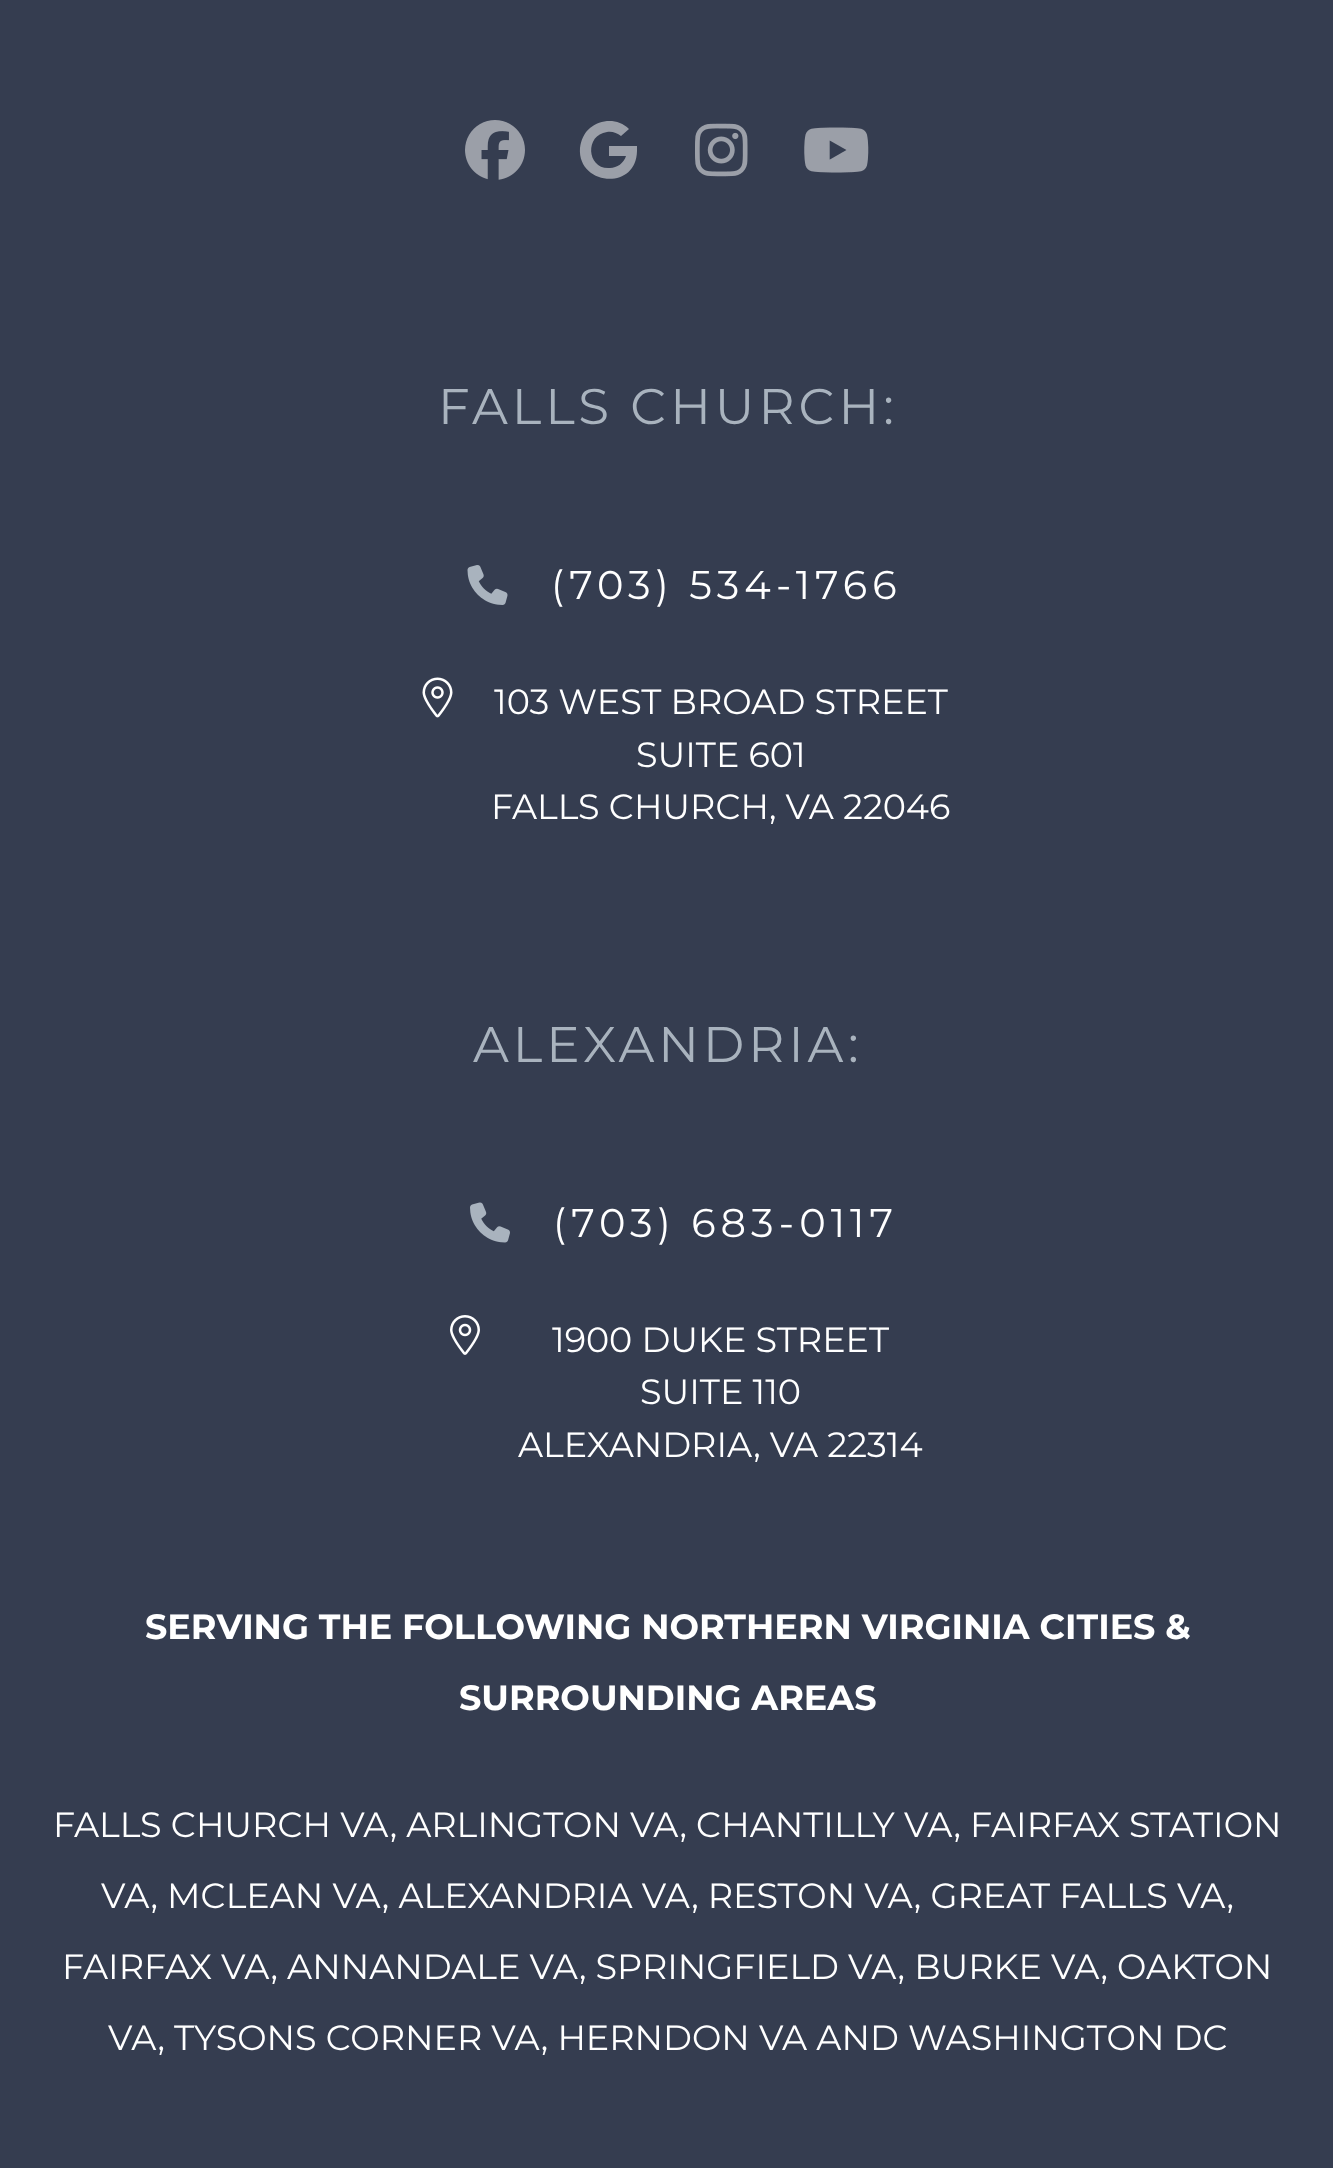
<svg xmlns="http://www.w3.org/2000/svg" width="1333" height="2168">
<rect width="100%" height="100%" fill="#353d50"/>
<image x="465" y="120" width="60" height="60" href="media/1.png"/>
<path d="M637 151c-1 41-60 34-57-3c1-8 4-15 10-20c11-9 28-10 39 1l-8 7c-4-3-9-5-14-4c-23 3-20 38 3 36c7 0 14-5 16-12h-17v-10h28z" fill="#9b9fa8"/>
<image x="695" y="123" width="53" height="54" href="media/2.png"/>
<image x="804" y="127" width="65" height="46" href="media/3.png"/>
<text x="438" y="424" style="font-family:Montserrat;font-size:50px;letter-spacing:4px;fill:#a9b3be">FALLS CHURCH:</text>
<image x="467" y="565" width="41" height="40" href="media/4.png"/>
<text x="551" y="599" style="font-family:Montserrat;font-size:40px;letter-spacing:5px;fill:#fff">(703) 534-1766</text>
<image x="422" y="677" width="31" height="41" href="media/5.png"/>
<text x="494" y="714" style="font-family:Montserrat;font-size:35px;fill:#fff">103 WEST BROAD STREET</text>
<text x="636" y="767" style="font-family:Montserrat;font-size:35px;fill:#fff">SUITE 601</text>
<text x="491" y="819" style="font-family:Montserrat;font-size:35px;fill:#fff">FALLS CHURCH, VA 22046</text>
<text x="473" y="1062" style="font-family:Montserrat;font-size:50px;letter-spacing:4px;fill:#a9b3be">ALEXANDRIA:</text>
<image x="470" y="1202" width="40" height="41" href="media/6.png"/>
<text x="553" y="1237" style="font-family:Montserrat;font-size:40px;letter-spacing:5px;fill:#fff">(703) 683-0117</text>
<image x="450" y="1315" width="30" height="40" href="media/7.png"/>
<text x="552" y="1352" style="font-family:Montserrat;font-size:35px;fill:#fff">1900 DUKE STREET</text>
<text x="640" y="1404" style="font-family:Montserrat;font-size:35px;fill:#fff">SUITE 110</text>
<text x="518" y="1457" style="font-family:Montserrat;font-size:35px;fill:#fff">ALEXANDRIA, VA 22314</text>
<text x="145" y="1639" style="font-family:Montserrat;font-size:35px;font-weight:bold;fill:#fff">SERVING THE FOLLOWING NORTHERN VIRGINIA CITIES &amp;</text>
<text x="459" y="1710" style="font-family:Montserrat;font-size:35px;font-weight:bold;fill:#fff">SURROUNDING AREAS</text>
<text x="53" y="1837" style="font-family:Montserrat;font-size:35px;fill:#fff">FALLS CHURCH VA, ARLINGTON VA, CHANTILLY VA, FAIRFAX STATION</text>
<text x="101" y="1908" style="font-family:Montserrat;font-size:35px;fill:#fff">VA, MCLEAN VA, ALEXANDRIA VA, RESTON VA, GREAT FALLS VA,</text>
<text x="62" y="1979" style="font-family:Montserrat;font-size:35px;fill:#fff">FAIRFAX VA, ANNANDALE VA, SPRINGFIELD VA, BURKE VA, OAKTON</text>
<text x="108" y="2050" style="font-family:Montserrat;font-size:35px;fill:#fff">VA, TYSONS CORNER VA, HERNDON VA AND WASHINGTON DC</text>
</svg>
